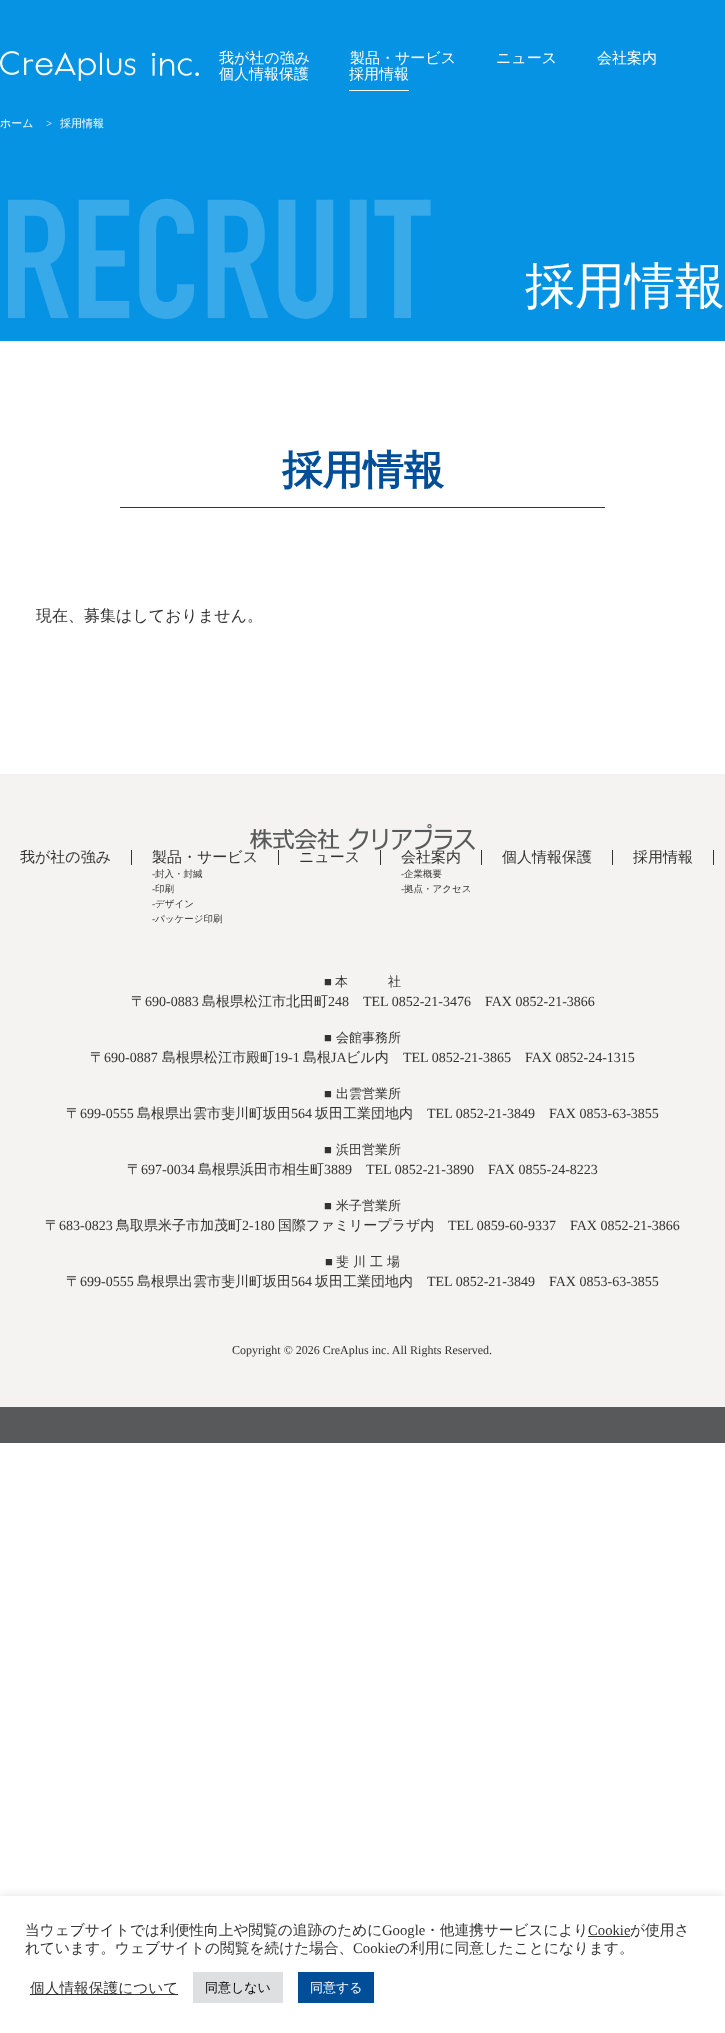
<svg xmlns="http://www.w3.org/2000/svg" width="725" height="2033">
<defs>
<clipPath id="clip1"><rect y="850" width="725" height="75"/></clipPath>
<clipPath id="clip2"><rect x="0" y="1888" width="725" height="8"/></clipPath>
</defs>
<rect width="100%" height="100%" fill="#fff"/>
<rect width="725" height="341" fill="#0693e3"/>
<image x="0" y="51" width="199" height="30" href="media/1.png"/>
<text x="219" y="63" style="font-family:WenQuanYi Zen Hei;font-size:15px;font-weight:500;fill:#fff">我が社の強み</text>
<text x="350" y="63" style="font-family:WenQuanYi Zen Hei;font-size:15px;font-weight:500;fill:#fff">製品・サービス</text>
<text x="496" y="63" style="font-family:WenQuanYi Zen Hei;font-size:15px;font-weight:500;fill:#fff">ニュース</text>
<text x="597" y="63" style="font-family:WenQuanYi Zen Hei;font-size:15px;font-weight:500;fill:#fff">会社案内</text>
<text x="219" y="79" style="font-family:WenQuanYi Zen Hei;font-size:15px;font-weight:500;fill:#fff">個人情報保護</text>
<text x="349" y="79" style="font-family:WenQuanYi Zen Hei;font-size:15px;font-weight:500;fill:#fff">採用情報</text>
<rect x="349" y="90" width="60" height="1" fill="#fff"/>
<text x="0" y="127" style="font-family:WenQuanYi Zen Hei;font-size:11px;font-weight:500;fill:#fff">ホーム</text>
<text x="46" y="127" style="font-family:Liberation Serif;font-size:11px;fill:#fff">&gt;</text>
<text x="60" y="127" style="font-family:WenQuanYi Zen Hei;font-size:11px;font-weight:500;fill:#fff">採用情報</text>
<text x="0" y="318" style="font-family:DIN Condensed;font-size:166px;font-weight:bold;fill:#38a9e9">RECRUIT</text>
<text x="525" y="303" style="font-family:WenQuanYi Zen Hei;font-size:50px;font-weight:500;fill:#fff">採用情報</text>
<rect x="120" y="507" width="485" height="1" fill="#333"/>
<text x="282" y="484" style="font-family:WenQuanYi Zen Hei;font-size:40.5px;font-weight:bold;fill:#004d98">採用情報</text>
<text x="36" y="621" style="font-family:WenQuanYi Zen Hei;font-size:16px;font-weight:500;fill:#333">現在、募集はしておりません。</text>
<rect y="774" width="725" height="633" fill="#f4f3f1"/>
<rect y="1407" width="725" height="36" fill="#57595a"/>
<image x="250" y="824" width="225" height="26" href="media/2.png"/>
<g clip-path="url(#clip1)">
<text x="20" y="862" style="font-family:WenQuanYi Zen Hei;font-size:15px;font-weight:500;fill:#333">我が社の強み</text>
</g>
<rect x="131" y="850" width="1" height="15" fill="#333"/>
<g clip-path="url(#clip1)">
<text x="152" y="862" style="font-family:WenQuanYi Zen Hei;font-size:15px;font-weight:500;fill:#333">製品・サービス</text>
</g>
<rect x="278" y="850" width="1" height="15" fill="#333"/>
<text x="152" y="877" style="font-family:Liberation Serif;font-size:9.5px;fill:#333">-</text>
<text x="155" y="877" style="font-family:WenQuanYi Zen Hei;font-size:9.5px;font-weight:500;fill:#333">封入・封緘</text>
<text x="152" y="892" style="font-family:Liberation Serif;font-size:9.5px;fill:#333">-</text>
<text x="155" y="892" style="font-family:WenQuanYi Zen Hei;font-size:9.5px;font-weight:500;fill:#333">印刷</text>
<text x="152" y="907" style="font-family:Liberation Serif;font-size:9.5px;fill:#333">-</text>
<text x="155" y="907" style="font-family:WenQuanYi Zen Hei;font-size:9.5px;font-weight:500;fill:#333">デザイン</text>
<text x="152" y="922" style="font-family:Liberation Serif;font-size:9.5px;fill:#333">-</text>
<text x="155" y="922" style="font-family:WenQuanYi Zen Hei;font-size:9.5px;font-weight:500;fill:#333">パッケージ印刷</text>
<text x="299" y="862" style="font-family:WenQuanYi Zen Hei;font-size:15px;font-weight:500;fill:#333">ニュース</text>
<rect x="380" y="850" width="1" height="15" fill="#333"/>
<g clip-path="url(#clip1)">
<text x="401" y="862" style="font-family:WenQuanYi Zen Hei;font-size:15px;font-weight:500;fill:#333">会社案内</text>
</g>
<rect x="481" y="850" width="1" height="15" fill="#333"/>
<text x="401" y="877" style="font-family:Liberation Serif;font-size:9.5px;fill:#333">-</text>
<text x="404" y="877" style="font-family:WenQuanYi Zen Hei;font-size:9.5px;font-weight:500;fill:#333">企業概要</text>
<text x="401" y="892" style="font-family:Liberation Serif;font-size:9.5px;fill:#333">-</text>
<text x="404" y="892" style="font-family:WenQuanYi Zen Hei;font-size:9.5px;font-weight:500;fill:#333">拠点・アクセス</text>
<g clip-path="url(#clip1)">
<text x="502" y="862" style="font-family:WenQuanYi Zen Hei;font-size:15px;font-weight:500;fill:#333">個人情報保護</text>
</g>
<rect x="612" y="850" width="1" height="15" fill="#333"/>
<g clip-path="url(#clip1)">
<text x="633" y="862" style="font-family:WenQuanYi Zen Hei;font-size:15px;font-weight:500;fill:#333">採用情報</text>
</g>
<rect x="713" y="850" width="1" height="15" fill="#333"/>
<text x="324" y="986" style="font-family:Liberation Serif;font-size:13px;fill:#333">■</text>
<text x="335" y="986" style="font-family:WenQuanYi Zen Hei;font-size:13px;font-weight:500;letter-spacing:40px;fill:#333">本</text>
<text x="388" y="986" style="font-family:WenQuanYi Zen Hei;font-size:13px;font-weight:500;fill:#333">社</text>
<text x="131" y="1006" style="font-family:WenQuanYi Zen Hei;font-size:14px;font-weight:500;fill:#333">〒</text>
<text x="145" y="1006" style="font-family:Liberation Serif;font-size:14px;fill:#333">690-0883</text>
<text x="202" y="1006" style="font-family:WenQuanYi Zen Hei;font-size:14px;font-weight:500;fill:#333">島根県松江市北田町</text>
<text x="328" y="1006" style="font-family:Liberation Serif;font-size:14px;fill:#333">248</text>
<text x="363" y="1006" style="font-family:Liberation Serif;font-size:14px;fill:#333">TEL 0852-21-3476</text>
<text x="485" y="1006" style="font-family:Liberation Serif;font-size:14px;fill:#333">FAX 0852-21-3866</text>
<text x="324" y="1042" style="font-family:Liberation Serif;font-size:13px;fill:#333">■</text>
<text x="336" y="1042" style="font-family:WenQuanYi Zen Hei;font-size:13px;font-weight:500;fill:#333">会館事務所</text>
<text x="90" y="1062" style="font-family:WenQuanYi Zen Hei;font-size:14px;font-weight:500;fill:#333">〒</text>
<text x="104" y="1062" style="font-family:Liberation Serif;font-size:14px;fill:#333">690-0887</text>
<text x="162" y="1062" style="font-family:WenQuanYi Zen Hei;font-size:14px;font-weight:500;fill:#333">島根県松江市殿町</text>
<text x="274" y="1062" style="font-family:Liberation Serif;font-size:14px;fill:#333">19-1</text>
<text x="303" y="1062" style="font-family:WenQuanYi Zen Hei;font-size:14px;font-weight:500;fill:#333">島根</text>
<text x="331" y="1062" style="font-family:Liberation Serif;font-size:14px;fill:#333">JA</text>
<text x="346" y="1062" style="font-family:WenQuanYi Zen Hei;font-size:14px;font-weight:500;fill:#333">ビル内</text>
<text x="403" y="1062" style="font-family:Liberation Serif;font-size:14px;fill:#333">TEL 0852-21-3865</text>
<text x="525" y="1062" style="font-family:Liberation Serif;font-size:14px;fill:#333">FAX 0852-24-1315</text>
<text x="324" y="1098" style="font-family:Liberation Serif;font-size:13px;fill:#333">■</text>
<text x="336" y="1098" style="font-family:WenQuanYi Zen Hei;font-size:13px;font-weight:500;fill:#333">出雲営業所</text>
<text x="66" y="1118" style="font-family:WenQuanYi Zen Hei;font-size:14px;font-weight:500;fill:#333">〒</text>
<text x="80" y="1118" style="font-family:Liberation Serif;font-size:14px;fill:#333">699-0555</text>
<text x="137" y="1118" style="font-family:WenQuanYi Zen Hei;font-size:14px;font-weight:500;fill:#333">島根県出雲市斐川町坂田</text>
<text x="291" y="1118" style="font-family:Liberation Serif;font-size:14px;fill:#333">564</text>
<text x="315" y="1118" style="font-family:WenQuanYi Zen Hei;font-size:14px;font-weight:500;fill:#333">坂田工業団地内</text>
<text x="427" y="1118" style="font-family:Liberation Serif;font-size:14px;fill:#333">TEL 0852-21-3849</text>
<text x="549" y="1118" style="font-family:Liberation Serif;font-size:14px;fill:#333">FAX 0853-63-3855</text>
<text x="324" y="1154" style="font-family:Liberation Serif;font-size:13px;fill:#333">■</text>
<text x="336" y="1154" style="font-family:WenQuanYi Zen Hei;font-size:13px;font-weight:500;fill:#333">浜田営業所</text>
<text x="127" y="1174" style="font-family:WenQuanYi Zen Hei;font-size:14px;font-weight:500;fill:#333">〒</text>
<text x="141" y="1174" style="font-family:Liberation Serif;font-size:14px;fill:#333">697-0034</text>
<text x="198" y="1174" style="font-family:WenQuanYi Zen Hei;font-size:14px;font-weight:500;fill:#333">島根県浜田市相生町</text>
<text x="324" y="1174" style="font-family:Liberation Serif;font-size:14px;fill:#333">3889</text>
<text x="366" y="1174" style="font-family:Liberation Serif;font-size:14px;fill:#333">TEL 0852-21-3890</text>
<text x="488" y="1174" style="font-family:Liberation Serif;font-size:14px;fill:#333">FAX 0855-24-8223</text>
<text x="324" y="1210" style="font-family:Liberation Serif;font-size:13px;fill:#333">■</text>
<text x="336" y="1210" style="font-family:WenQuanYi Zen Hei;font-size:13px;font-weight:500;fill:#333">米子営業所</text>
<text x="45" y="1230" style="font-family:WenQuanYi Zen Hei;font-size:14px;font-weight:500;fill:#333">〒</text>
<text x="59" y="1230" style="font-family:Liberation Serif;font-size:14px;fill:#333">683-0823</text>
<text x="116" y="1230" style="font-family:WenQuanYi Zen Hei;font-size:14px;font-weight:500;fill:#333">鳥取県米子市加茂町</text>
<text x="242" y="1230" style="font-family:Liberation Serif;font-size:14px;fill:#333">2-180</text>
<text x="278" y="1230" style="font-family:WenQuanYi Zen Hei;font-size:14px;font-weight:500;fill:#333">国際ファミリープラザ内</text>
<text x="448" y="1230" style="font-family:Liberation Serif;font-size:14px;fill:#333">TEL 0859-60-9337</text>
<text x="570" y="1230" style="font-family:Liberation Serif;font-size:14px;fill:#333">FAX 0852-21-3866</text>
<text x="325" y="1266" style="font-family:Liberation Serif;font-size:13px;fill:#333">■</text>
<text x="336" y="1266" style="font-family:WenQuanYi Zen Hei;font-size:13px;font-weight:500;letter-spacing:4px;fill:#333">斐川工</text>
<text x="387" y="1266" style="font-family:WenQuanYi Zen Hei;font-size:13px;font-weight:500;fill:#333">場</text>
<text x="66" y="1286" style="font-family:WenQuanYi Zen Hei;font-size:14px;font-weight:500;fill:#333">〒</text>
<text x="80" y="1286" style="font-family:Liberation Serif;font-size:14px;fill:#333">699-0555</text>
<text x="137" y="1286" style="font-family:WenQuanYi Zen Hei;font-size:14px;font-weight:500;fill:#333">島根県出雲市斐川町坂田</text>
<text x="291" y="1286" style="font-family:Liberation Serif;font-size:14px;fill:#333">564</text>
<text x="315" y="1286" style="font-family:WenQuanYi Zen Hei;font-size:14px;font-weight:500;fill:#333">坂田工業団地内</text>
<text x="427" y="1286" style="font-family:Liberation Serif;font-size:14px;fill:#333">TEL 0852-21-3849</text>
<text x="549" y="1286" style="font-family:Liberation Serif;font-size:14px;fill:#333">FAX 0853-63-3855</text>
<text x="232" y="1354" style="font-family:Liberation Serif;font-size:12px;fill:#333">Copyright © 2026 CreAplus inc. All Rights Reserved.</text>
<g clip-path="url(#clip2)">
<rect y="1895" width="725" height="137" fill="#acabab4d" filter="blur(5px)"/>
</g>
<text x="25" y="1935" style="font-family:WenQuanYi Zen Hei;font-size:14.7px;font-weight:500;fill:#333">当ウェブサイトでは利便性向上や閲覧の追跡のために</text>
<text x="382" y="1935" style="font-family:Liberation Serif;font-size:14.7px;fill:#333">Google</text>
<text x="425" y="1935" style="font-family:WenQuanYi Zen Hei;font-size:14.7px;font-weight:500;fill:#333">・他連携サービスにより</text>
<text x="588" y="1935" style="font-family:Liberation Serif;font-size:14.7px;fill:#333">Cookie</text>
<rect x="588" y="1936" width="42" height="1" fill="#333"/>
<text x="630" y="1935" style="font-family:WenQuanYi Zen Hei;font-size:14.7px;font-weight:500;fill:#333">が使用さ</text>
<text x="25" y="1953" style="font-family:WenQuanYi Zen Hei;font-size:14.7px;font-weight:500;fill:#333">れています。ウェブサイトの閲覧を続けた場合、</text>
<text x="353" y="1953" style="font-family:Liberation Serif;font-size:14.7px;fill:#333">Cookie</text>
<text x="395" y="1953" style="font-family:WenQuanYi Zen Hei;font-size:14.7px;font-weight:500;fill:#333">の利用に同意したことになります。</text>
<rect x="30" y="1994" width="148" height="1" fill="#333"/>
<text x="30" y="1993" style="font-family:WenQuanYi Zen Hei;font-size:14.7px;font-weight:500;fill:#333">個人情報保護について</text>
<rect x="193" y="1972" width="90" height="31" fill="#dedfe0"/>
<text x="205" y="1992" style="font-family:WenQuanYi Zen Hei;font-size:13px;font-weight:500;fill:#000">同意しない</text>
<rect x="298" y="1972" width="76" height="31" fill="#004d98"/>
<text x="310" y="1992" style="font-family:WenQuanYi Zen Hei;font-size:13px;font-weight:500;fill:#fff">同意する</text>
</svg>
